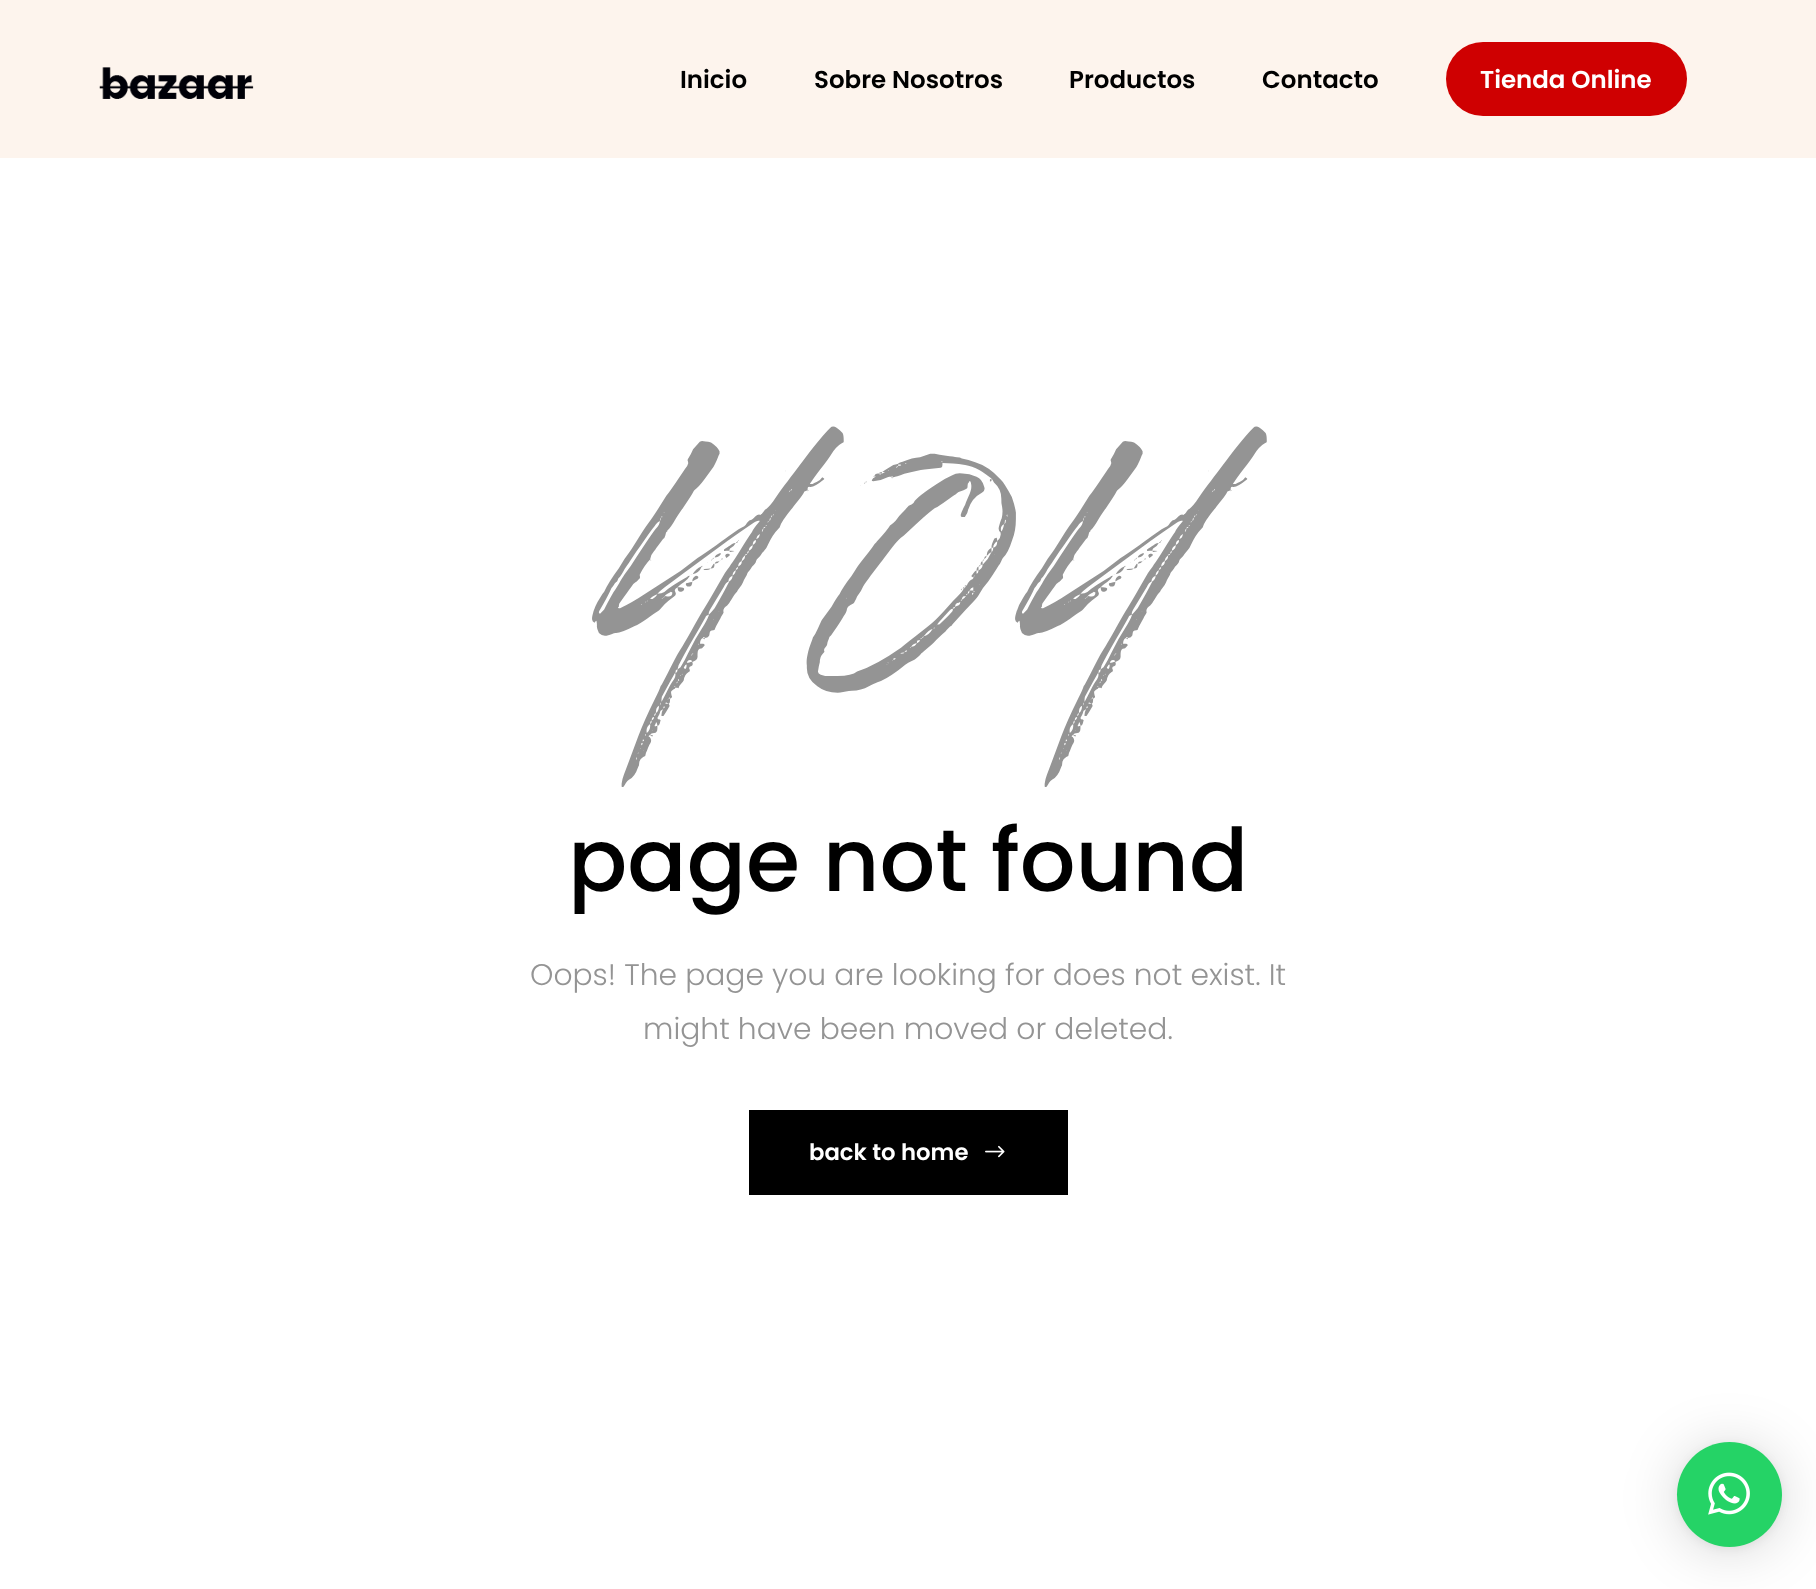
<svg xmlns="http://www.w3.org/2000/svg" width="1816" height="1589">
<rect width="100%" height="100%" fill="#fff"/>
<rect width="1816" height="158" fill="#fdf4ed"/>
<image x="99" y="67" width="155" height="32" href="media/1.png"/>
<text x="680" y="88" style="font-family:Poppins;font-size:24.5px;font-weight:600;fill:#000">Inicio</text>
<text x="814" y="88" style="font-family:Poppins;font-size:24.5px;font-weight:600;fill:#000">Sobre Nosotros</text>
<text x="1069" y="88" style="font-family:Poppins;font-size:24.5px;font-weight:600;fill:#000">Productos</text>
<text x="1262" y="88" style="font-family:Poppins;font-size:24.5px;font-weight:600;fill:#000">Contacto</text>
<rect x="1446" y="42" width="241" height="74" rx="37" fill="#cf0001"/>
<text x="1480" y="88" style="font-family:Poppins;font-size:24.5px;font-weight:600;fill:#fff">Tienda Online</text>
<text x="590" y="696" style="font-family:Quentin;font-size:406px;fill:#949494">404</text>
<text x="568" y="891" style="font-family:Poppins;font-size:87.5px;font-weight:500;fill:#000">page not found</text>
<text x="530" y="985" style="font-family:Poppins;font-size:29.75px;font-weight:300;fill:#949494">Oops! The page you are looking for does not exist. It</text>
<text x="643" y="1039" style="font-family:Poppins;font-size:29.75px;font-weight:300;fill:#949494">might have been moved or deleted.</text>
<rect x="749" y="1110" width="319" height="85" fill="#000"/>
<text x="809" y="1160" style="font-family:Poppins;font-size:22.75px;font-weight:600;fill:#fff">back to home</text>
<image x="985" y="1145" width="20" height="13" href="media/2.png"/>
<rect x="1677" y="1446" width="105" height="105" rx="52.5" fill="#00000029" filter="blur(28px)"/>
<rect x="1677" y="1444" width="105" height="105" rx="52.5" fill="#0000000f" filter="blur(5px)"/>
<circle cx="1729.5" cy="1494.5" r="52.5" fill="#25d366"/>
<image x="1708" y="1472" width="42" height="43" href="media/3.png"/>
</svg>
